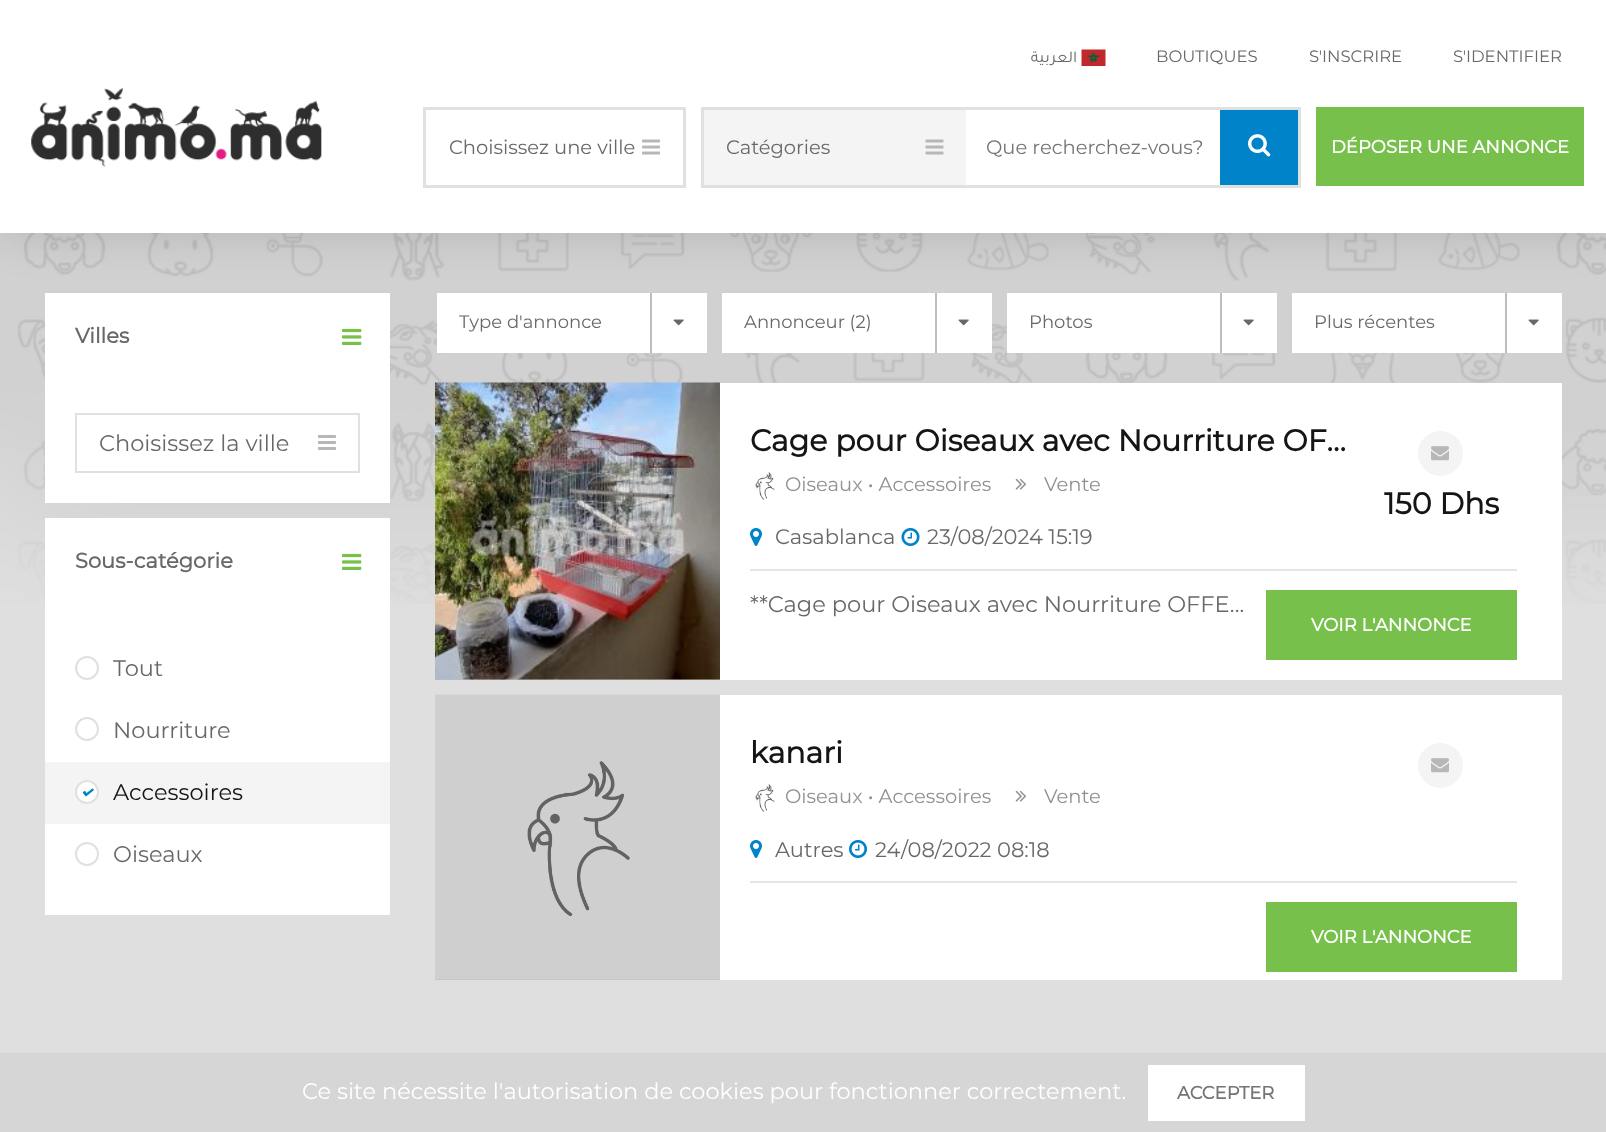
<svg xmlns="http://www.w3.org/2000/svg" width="1606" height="1132">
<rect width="100%" height="100%" fill="#dfdfdf"/>
<image x="0" y="233" width="1606" height="371" href="media/6.png"/>
<rect x="45" y="293" width="345" height="210" fill="#fff"/>
<rect x="437" y="293" width="270" height="60" fill="#fff"/>
<rect x="650" y="293" width="2" height="60" fill="#bdbdbd"/>
<rect x="722" y="293" width="270" height="60" fill="#fff"/>
<rect x="935" y="293" width="2" height="60" fill="#bdbdbd"/>
<rect x="1007" y="293" width="270" height="60" fill="#fff"/>
<rect x="1220" y="293" width="2" height="60" fill="#bdbdbd"/>
<rect x="1292" y="293" width="270" height="60" fill="#fff"/>
<rect x="1505" y="293" width="2" height="60" fill="#bdbdbd"/>
<rect width="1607" height="233" fill="#00000024" filter="blur(22.5px)"/>
<rect width="1606" height="233" fill="#fff"/>
<text x="1077" y="62" style="font-family:Tajawal;font-size:16.5px;direction:rtl;fill:#686868">العربية</text>
<image x="1081" y="49" width="25" height="17" href="media/1.png"/>
<text x="1156" y="62" style="font-family:Montserrat;font-size:16.5px;font-weight:100;fill:#686868">BOUTIQUES</text>
<text x="1309" y="62" style="font-family:Montserrat;font-size:16.5px;font-weight:100;fill:#686868">S'INSCRIRE</text>
<text x="1453" y="62" style="font-family:Montserrat;font-size:16.5px;font-weight:100;fill:#686868">S'IDENTIFIER</text>
<image x="31" y="88" width="291" height="79" href="media/2.png"/>
<rect x="424.5" y="108.5" width="260" height="78" fill="none" stroke="#e0e0e0" stroke-width="3"/>
<text x="449" y="154" style="font-family:Montserrat;font-size:19.5px;font-weight:100;fill:#686868">Choisissez une ville</text>
<image x="642" y="139" width="18" height="16" href="media/3.png"/>
<rect x="702.5" y="108.5" width="597" height="78" fill="none" stroke="#e0e0e0" stroke-width="3"/>
<rect x="704" y="110" width="262" height="75" fill="#f4f4f4"/>
<text x="726" y="154" style="font-family:Montserrat;font-size:19.5px;font-weight:100;fill:#686868">Catégories</text>
<image x="925" y="139" width="19" height="16" href="media/4.png"/>
<text x="986" y="154" style="font-family:Montserrat;font-size:19.5px;font-weight:100;fill:#757575">Que recherchez-vous?</text>
<rect x="1220" y="110" width="78" height="75" fill="#0083c9"/>
<image x="1248" y="134" width="23" height="23" href="media/5.png"/>
<rect x="1316" y="107" width="268" height="79" fill="#77c04b"/>
<text x="1331" y="153" style="font-family:Montserrat;font-size:18px;font-weight:bold;fill:#fff">DÉPOSER UNE ANNONCE</text>
<text x="75" y="343" style="font-family:Montserrat;font-size:21px;font-weight:bold;fill:#686868">Villes</text>
<image x="342" y="328" width="20" height="17" href="media/7.png"/>
<rect x="76" y="414" width="283" height="58" fill="none" stroke="#e0e0e0" stroke-width="2"/>
<text x="99" y="451" style="font-family:Montserrat;font-size:22.5px;font-weight:100;fill:#686868">Choisissez la ville</text>
<image x="318" y="435" width="18" height="15" href="media/8.png"/>
<rect x="45" y="518" width="345" height="397" fill="#fff"/>
<text x="75" y="568" style="font-family:Montserrat;font-size:21px;font-weight:bold;fill:#686868">Sous-catégorie</text>
<image x="342" y="553" width="20" height="17" href="media/7.png"/>
<circle cx="87" cy="668" r="11" fill="none" stroke="#e0e0e0" stroke-width="2"/>
<text x="113" y="676" style="font-family:Montserrat;font-size:22.5px;font-weight:100;fill:#686868">Tout</text>
<circle cx="87" cy="729" r="11" fill="none" stroke="#e0e0e0" stroke-width="2"/>
<text x="113" y="738" style="font-family:Montserrat;font-size:22.5px;font-weight:100;fill:#686868">Nourriture</text>
<rect x="45" y="762" width="345" height="62" fill="#f4f4f4"/>
<circle cx="87" cy="792" r="11" fill="#fff" stroke="#e0e0e0" stroke-width="2"/>
<image x="82" y="788" width="12" height="9" href="media/9.png"/>
<text x="113" y="800" style="font-family:Montserrat;font-size:22.5px;font-weight:100;fill:#151515">Accessoires</text>
<circle cx="87" cy="854" r="11" fill="none" stroke="#e0e0e0" stroke-width="2"/>
<text x="113" y="862" style="font-family:Montserrat;font-size:22.5px;font-weight:100;fill:#686868">Oiseaux</text>
<text x="459" y="328" style="font-family:Montserrat;font-size:18px;font-weight:100;fill:#686868">Type d'annonce</text>
<image x="673" y="319" width="11" height="7" href="media/10.png"/>
<text x="744" y="328" style="font-family:Montserrat;font-size:18px;font-weight:100;fill:#686868">Annonceur (2)</text>
<image x="958" y="319" width="11" height="7" href="media/10.png"/>
<text x="1029" y="328" style="font-family:Montserrat;font-size:18px;font-weight:100;fill:#686868">Photos</text>
<image x="1243" y="319" width="11" height="7" href="media/10.png"/>
<text x="1314" y="328" style="font-family:Montserrat;font-size:18px;font-weight:100;fill:#686868">Plus récentes</text>
<image x="1528" y="319" width="11" height="7" href="media/10.png"/>
<rect x="720" y="383" width="842" height="297" fill="#fff"/>
<rect x="435" y="679" width="285" height="1" fill="#bfbfbf"/>
<image x="435" y="382" width="285" height="298" href="media/11.png"/>
<rect x="750" y="569" width="767" height="2" fill="#e5e5e5"/>
<text x="750" y="451" style="font-family:Montserrat;font-size:30px;font-weight:bold;fill:#151515">Cage pour Oiseaux avec Nourriture OF…</text>
<image x="755" y="472" width="20" height="28" href="media/12.png"/>
<text x="785" y="491" style="font-family:Montserrat;font-size:19.5px;font-weight:100;fill:#909090">Oiseaux • Accessoires</text>
<image x="1015" y="478" width="12" height="12" href="media/13.png"/>
<text x="1044" y="491" style="font-family:Montserrat;font-size:19.5px;font-weight:100;fill:#909090">Vente</text>
<image x="750" y="528" width="12" height="18" href="media/14.png"/>
<text x="775" y="544" style="font-family:Montserrat;font-size:21px;font-weight:100;fill:#686868">Casablanca</text>
<image x="901" y="528" width="19" height="18" href="media/15.png"/>
<text x="927" y="544" style="font-family:Montserrat;font-size:21px;font-weight:100;fill:#686868">23/08/2024 15:19</text>
<circle cx="1440.5" cy="453.5" r="22.5" fill="#f4f4f4"/>
<image x="1431" y="446" width="18" height="15" href="media/16.png"/>
<text x="1384" y="514" style="font-family:Montserrat;font-size:30px;font-weight:bold;fill:#151515">150 Dhs</text>
<text x="750" y="612" style="font-family:Montserrat;font-size:22.5px;font-weight:100;fill:#686868">**Cage pour Oiseaux avec Nourriture OFFE...</text>
<rect x="1266" y="590" width="251" height="70" fill="#77c04b"/>
<text x="1311" y="631" style="font-family:Montserrat;font-size:18px;font-weight:bold;fill:#fff">VOIR L'ANNONCE</text>
<rect x="720" y="695" width="842" height="285" fill="#fff"/>
<rect x="435" y="979" width="285" height="1" fill="#bfbfbf"/>
<image x="435" y="694" width="285" height="286" href="media/17.png"/>
<rect x="750" y="881" width="767" height="2" fill="#e5e5e5"/>
<text x="750" y="763" style="font-family:Montserrat;font-size:30px;font-weight:bold;fill:#151515">kanari</text>
<image x="755" y="784" width="20" height="28" href="media/12.png"/>
<text x="785" y="803" style="font-family:Montserrat;font-size:19.5px;font-weight:100;fill:#909090">Oiseaux • Accessoires</text>
<image x="1015" y="790" width="12" height="12" href="media/13.png"/>
<text x="1044" y="803" style="font-family:Montserrat;font-size:19.5px;font-weight:100;fill:#909090">Vente</text>
<image x="750" y="840" width="12" height="18" href="media/14.png"/>
<text x="775" y="857" style="font-family:Montserrat;font-size:21px;font-weight:100;fill:#686868">Autres</text>
<image x="849" y="840" width="18" height="18" href="media/18.png"/>
<text x="875" y="857" style="font-family:Montserrat;font-size:21px;font-weight:100;fill:#686868">24/08/2022 08:18</text>
<circle cx="1440.5" cy="765.5" r="22.5" fill="#f4f4f4"/>
<image x="1431" y="758" width="18" height="15" href="media/16.png"/>
<rect x="1266" y="902" width="251" height="70" fill="#77c04b"/>
<text x="1311" y="943" style="font-family:Montserrat;font-size:18px;font-weight:bold;fill:#fff">VOIR L'ANNONCE</text>
<rect y="1053" width="1606" height="79" fill="#d6d6d6"/>
<text x="302" y="1099" style="font-family:Montserrat;font-size:22.5px;font-weight:100;fill:#fff">Ce site nécessite l'autorisation de cookies pour fonctionner correctement.</text>
<rect x="1148" y="1065" width="157" height="56" fill="#fff"/>
<text x="1177" y="1099" style="font-family:Montserrat;font-size:18px;font-weight:bold;fill:#757575">ACCEPTER</text>
</svg>
